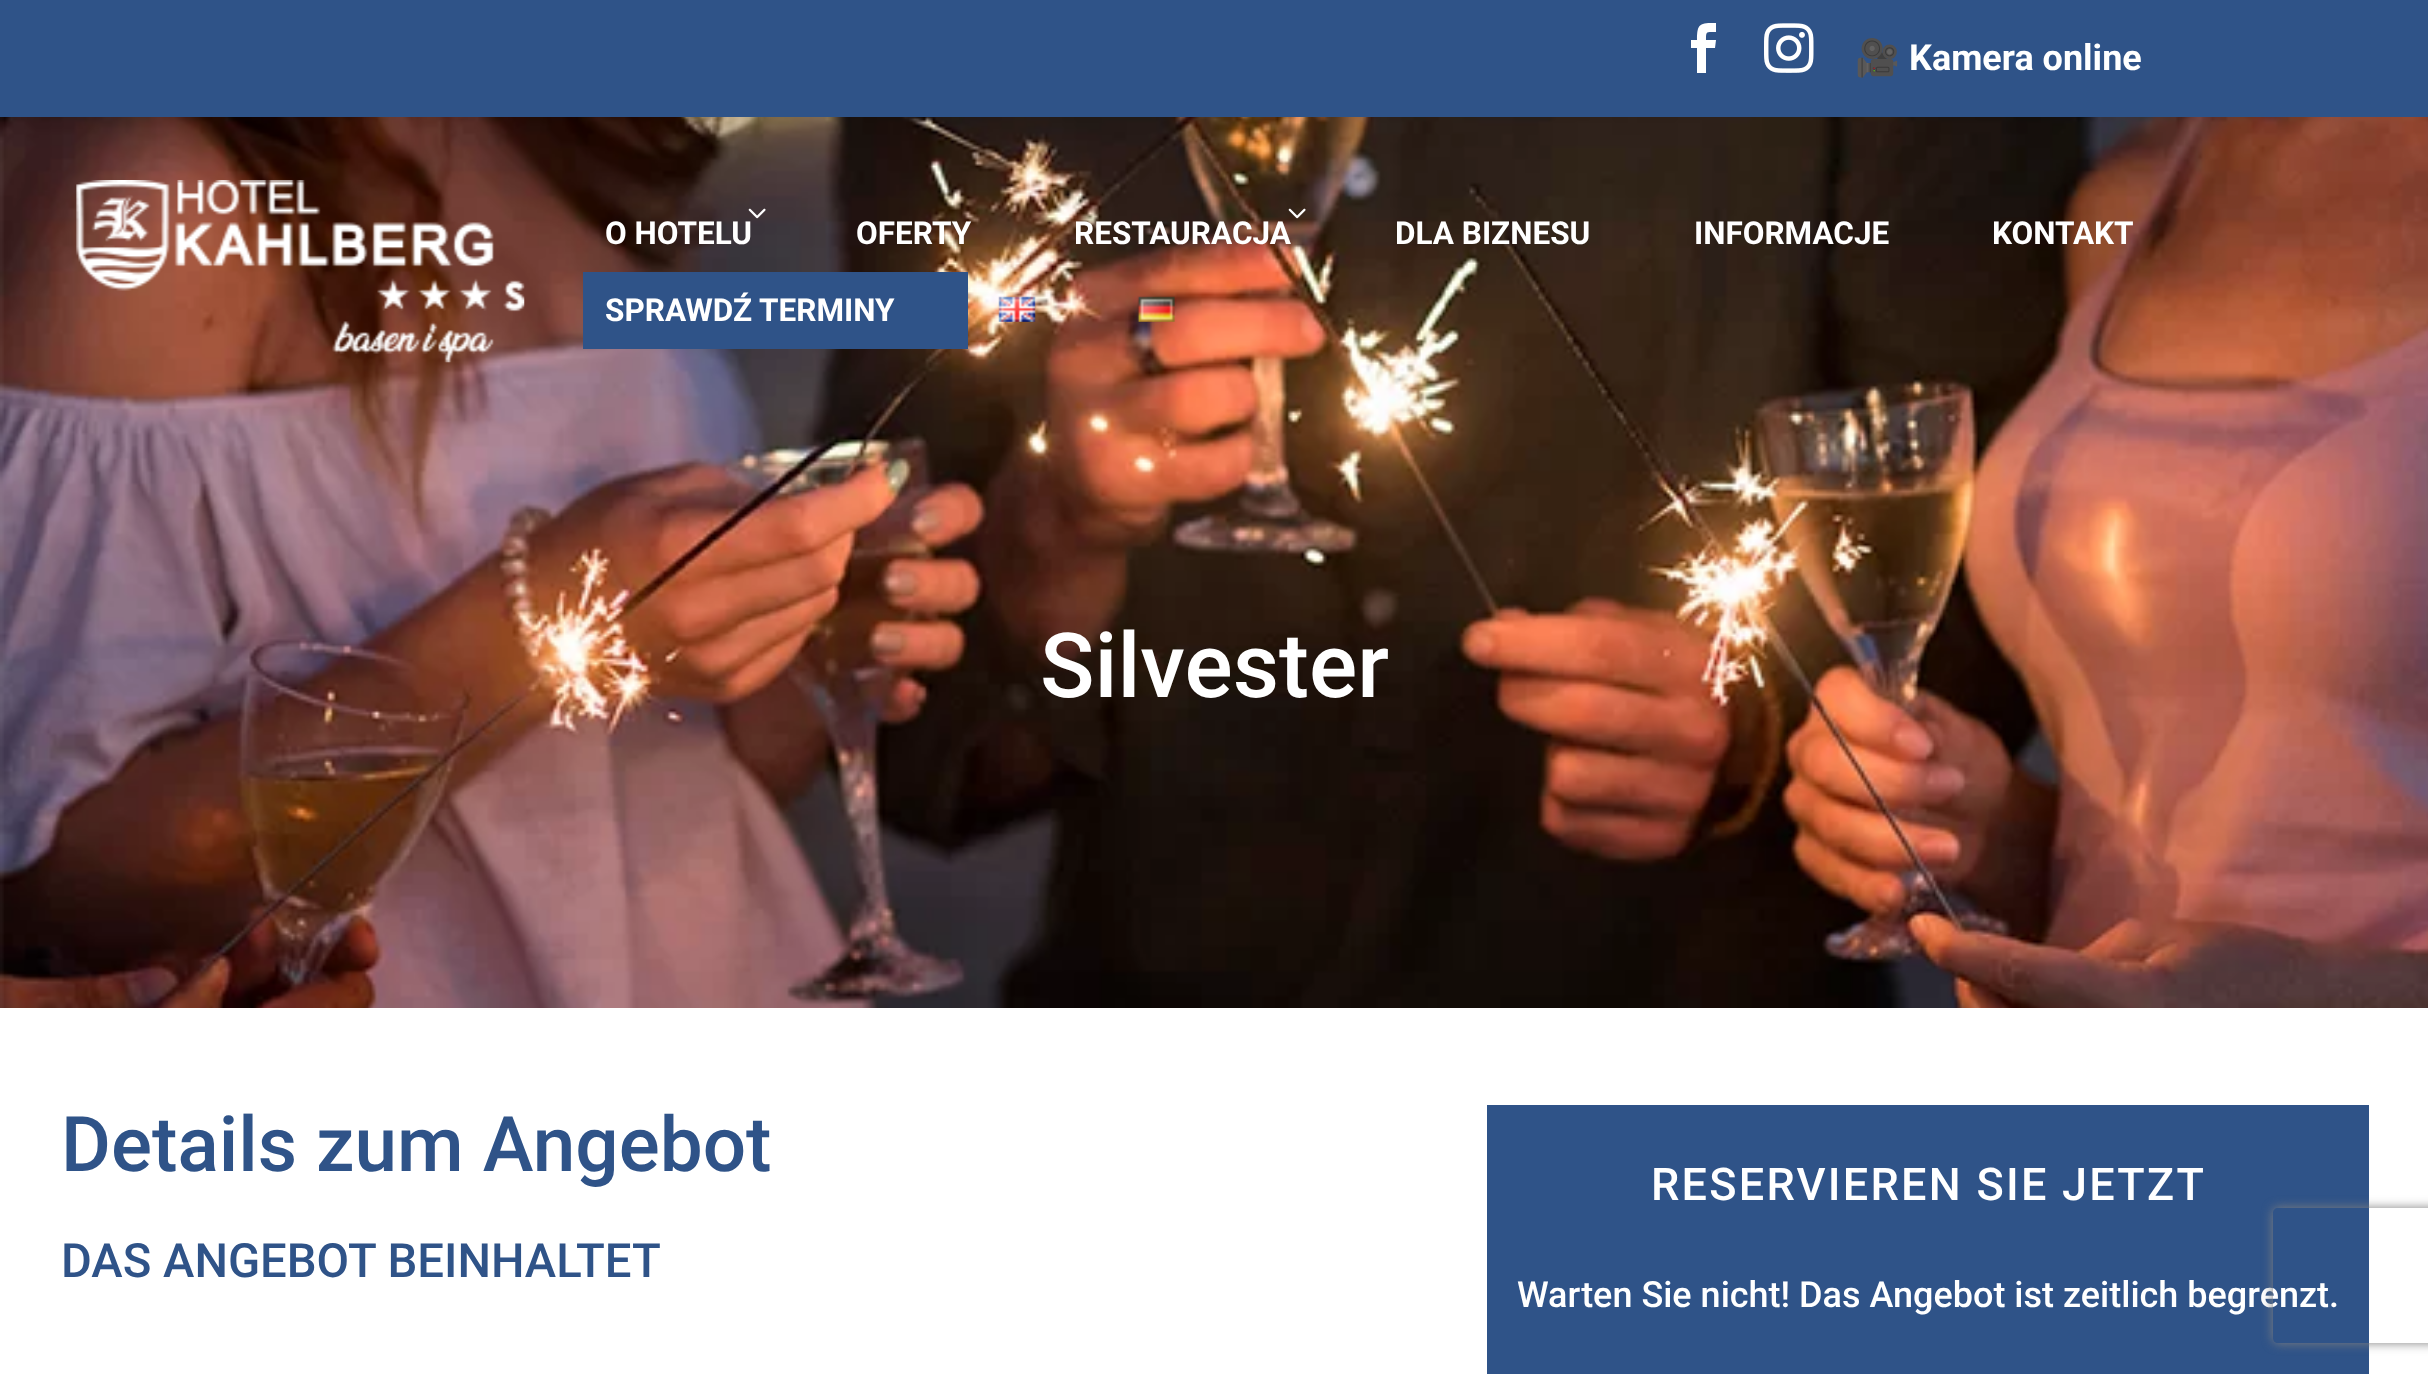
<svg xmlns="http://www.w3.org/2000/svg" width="2428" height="1374">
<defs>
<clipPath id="clip1"><path d="M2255 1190h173v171h-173zm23 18h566c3 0 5 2 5 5v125c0 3-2 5-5 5h-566c-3 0-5-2-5-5v-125c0-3 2-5 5-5z" clip-rule="evenodd"/></clipPath>
</defs>
<rect width="100%" height="100%" fill="#fff"/>
<rect width="2428" height="117" fill="#2f5388"/>
<path d="M1697 73h9v-25h9l1-8h-10c0-9 0-8 10-8v-9c-16 0-19 0-19 17h-6v8h6z" fill="#fff"/>
<image x="1764" y="23" width="50" height="50" href="media/1.png"/>
<text x="1855" y="70" style="font-family:Noto Color Emoji;font-size:36px;font-weight:bold;fill:#fff">🎥</text>
<text x="1909" y="70" style="font-family:Roboto;font-size:36px;font-weight:bold;fill:#fff">Kamera online</text>
<image x="0" y="117" width="2428" height="891" href="media/7.png"/>
<image x="76" y="180" width="449" height="183" href="media/2.png"/>
<image x="748" y="208" width="18" height="11" href="media/3.png"/>
<text x="605" y="244" style="font-family:Roboto;font-size:31.5px;font-weight:bold;fill:#fff">O HOTELU</text>
<text x="856" y="244" style="font-family:Roboto;font-size:31.5px;font-weight:bold;fill:#fff">OFERTY</text>
<image x="1288" y="208" width="18" height="11" href="media/4.png"/>
<text x="1074" y="244" style="font-family:Roboto;font-size:31.5px;font-weight:bold;fill:#fff">RESTAURACJA</text>
<text x="1395" y="244" style="font-family:Roboto;font-size:31.5px;font-weight:bold;fill:#fff">DLA BIZNESU</text>
<text x="1694" y="244" style="font-family:Roboto;font-size:31.5px;font-weight:bold;fill:#fff">INFORMACJE</text>
<text x="1992" y="244" style="font-family:Roboto;font-size:31.5px;font-weight:bold;fill:#fff">KONTAKT</text>
<rect x="583" y="272" width="385" height="77" fill="#2f5388"/>
<text x="605" y="321" style="font-family:Roboto;font-size:31.5px;font-weight:bold;fill:#fff">SPRAWDŹ TERMINY</text>
<image x="998" y="296" width="38" height="26" href="media/5.png"/>
<image x="1137" y="296" width="38" height="26" href="media/6.png"/>
<text x="1040" y="697" style="font-family:Roboto;font-size:90px;font-weight:500;fill:#fff">Silvester</text>
<text x="61" y="1171" style="font-family:Roboto;font-size:76.5px;font-weight:500;fill:#2f5388">Details zum Angebot</text>
<text x="61" y="1277" style="font-family:Roboto;font-size:47.25px;font-weight:500;fill:#2f5388">DAS ANGEBOT BEINHALTET</text>
<rect x="1487" y="1105" width="882" height="269" fill="#2f5388"/>
<text x="1651" y="1200" style="font-family:Roboto;font-size:45px;font-weight:500;letter-spacing:2.25px;fill:#fff">RESERVIEREN SIE JETZT</text>
<text x="1517" y="1307" style="font-family:Roboto;font-size:36px;font-weight:500;fill:#fff">Warten Sie nicht! Das Angebot ist zeitlich begrenzt.</text>
<g clip-path="url(#clip1)">
<rect x="2273" y="1208" width="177" height="135" rx="5" fill="#808080" filter="blur(5.5px)"/>
</g>
</svg>
